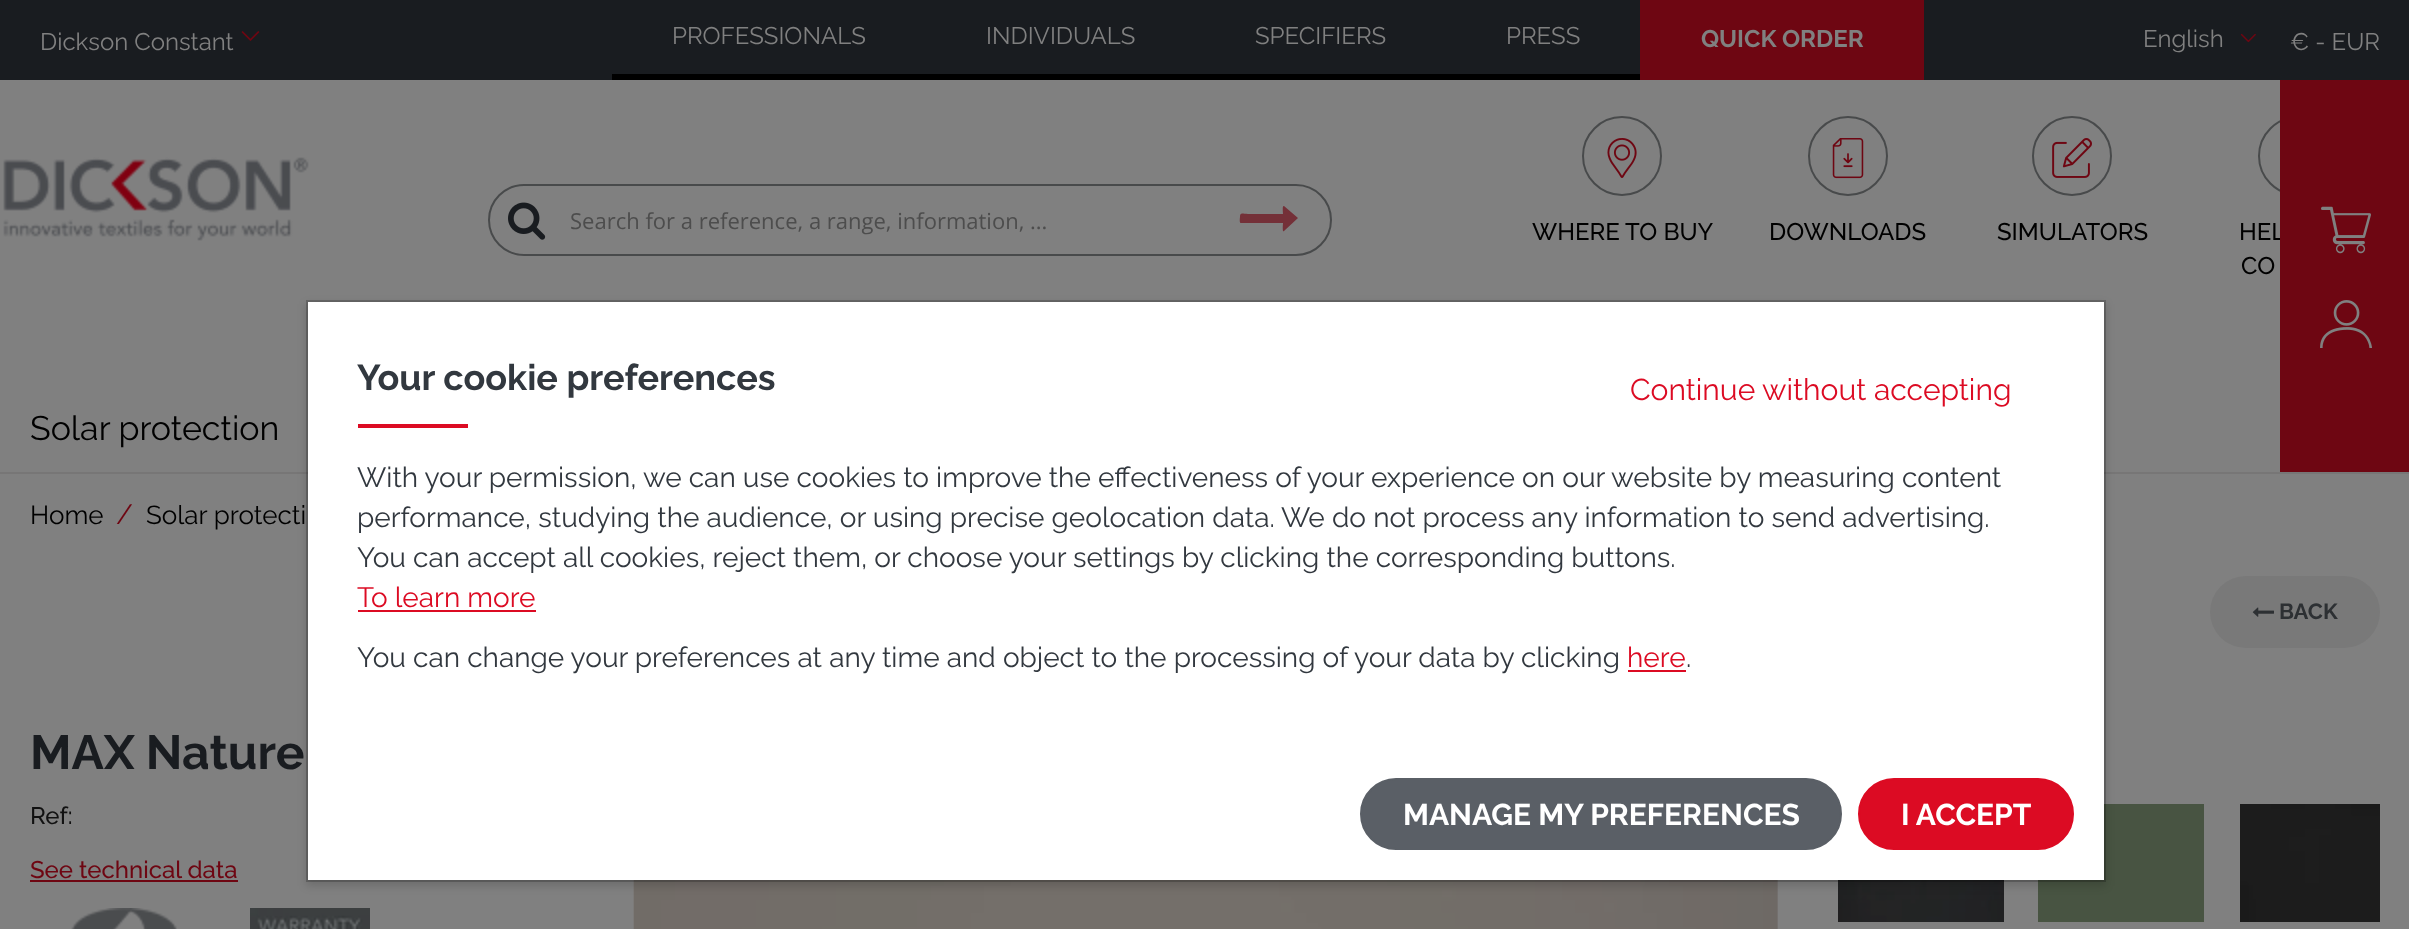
<svg xmlns="http://www.w3.org/2000/svg" width="2409" height="929">
<rect width="100%" height="100%" fill="#808080"/>
<rect width="2409" height="80" fill="#191c20"/>
<text x="40" y="50" style="font-family:Raleway;font-size:24px;fill:#808080">Dickson Constant</text>
<image x="241" y="31" width="19" height="10" href="media/1.png"/>
<rect x="612" y="74" width="1028" height="6" fill="#000"/>
<text x="672" y="44" style="font-family:Raleway;font-size:24px;fill:#808080">PROFESSIONALS</text>
<text x="986" y="44" style="font-family:Raleway;font-size:24px;fill:#808080">INDIVIDUALS</text>
<text x="1255" y="44" style="font-family:Raleway;font-size:24px;fill:#808080">SPECIFIERS</text>
<text x="1506" y="44" style="font-family:Raleway;font-size:24px;fill:#808080">PRESS</text>
<rect x="1640" width="284" height="80" fill="#6e0612"/>
<text x="1701" y="47" style="font-family:Raleway;font-size:24px;font-weight:bold;fill:#808080">QUICK ORDER</text>
<text x="2143" y="47" style="font-family:Raleway;font-size:24px;fill:#808080">English</text>
<image x="2240" y="33" width="16" height="10" href="media/2.png"/>
<text x="2290" y="50" style="font-family:Raleway;font-size:24px;fill:#808080">€ - EUR</text>
<image x="3" y="157" width="306" height="84" href="media/3.png"/>
<rect x="489" y="185" width="842" height="70" rx="35" fill="none" stroke="#484a4b" stroke-width="2"/>
<image x="508" y="202" width="38" height="38" href="media/4.png"/>
<text x="570" y="229" style="font-family:Open Sans;font-size:22px;fill:#4d4d4d">Search for a reference, a range, information, ...</text>
<path d="M1298 218l-14 13c-2 2-1-7-1-8h-42c-2 0-1-5-1-6c0-5 2-3 8-3h35c0-1-1-9 1-8z" fill="#743038"/>
<circle cx="1622" cy="156" r="39" fill="none" stroke="#484a4b" stroke-width="2"/>
<image x="1607" y="138" width="30" height="40" href="media/5.png"/>
<text x="1532" y="240" style="font-family:Raleway;font-size:24px;font-weight:500;fill:#000">WHERE TO BUY</text>
<circle cx="1848" cy="156" r="39" fill="none" stroke="#484a4b" stroke-width="2"/>
<image x="1832" y="138" width="32" height="41" href="media/6.png"/>
<text x="1769" y="240" style="font-family:Raleway;font-size:24px;font-weight:500;fill:#000">DOWNLOADS</text>
<circle cx="2072" cy="156" r="39" fill="none" stroke="#484a4b" stroke-width="2"/>
<image x="2052" y="138" width="40" height="40" href="media/7.png"/>
<text x="1997" y="240" style="font-family:Raleway;font-size:24px;font-weight:500;fill:#000">SIMULATORS</text>
<circle cx="2298" cy="156" r="39" fill="none" stroke="#484a4b" stroke-width="2"/>
<text x="2239" y="240" style="font-family:Raleway;font-size:24px;font-weight:500;fill:#000">HEL</text>
<text x="2241" y="274" style="font-family:Raleway;font-size:24px;font-weight:500;fill:#000">CO</text>
<rect x="2280" y="80" width="129" height="392" fill="#6e0612"/>
<image x="2321" y="206" width="50" height="48" href="media/8.png"/>
<image x="2320" y="300" width="52" height="48" href="media/9.png"/>
<text x="30" y="440" style="font-family:Raleway;font-size:34px;fill:#000">Solar protection</text>
<rect y="472" width="2409" height="2" fill="#777676"/>
<text x="30" y="524" style="font-family:Raleway;font-size:26px;fill:#000">Home</text>
<text x="116" y="524" style="font-family:Raleway;font-size:28px;fill:#6e0612">/</text>
<text x="146" y="524" style="font-family:Raleway;font-size:26px;fill:#000">Solar protecti</text>
<rect x="2210" y="576" width="170" height="72" rx="36" fill="#797979"/>
<image x="2252" y="607" width="22" height="10" href="media/10.png"/>
<text x="2279" y="619" style="font-family:Raleway;font-size:22px;font-weight:bold;fill:#2d3033">BACK</text>
<text x="30" y="769" style="font-family:Raleway;font-size:48px;font-weight:bold;fill:#191c20">MAX Nature</text>
<text x="30" y="824" style="font-family:Raleway;font-size:24px;font-weight:500;fill:#111">Ref:</text>
<text x="30" y="878" style="font-family:Raleway;font-size:24px;font-weight:500;fill:#6e0612">See technical data</text>
<rect x="30" y="880" width="208" height="2" fill="#6e0612"/>
<image x="71" y="908" width="106" height="21" href="media/11.png"/>
<image x="250" y="908" width="120" height="21" href="media/12.png"/>
<image x="633" y="880" width="1145" height="49" href="media/13.png"/>
<image x="1838" y="880" width="166" height="42" href="media/14.png"/>
<rect x="2038" y="804" width="166" height="118" fill="#485442"/>
<image x="2240" y="804" width="140" height="118" href="media/15.png"/>
<rect x="306" y="304" width="1800" height="582" fill="#00000026" filter="blur(4px)"/>
<rect x="308" y="302" width="1796" height="578" fill="#fff"/>
<rect x="307" y="301" width="1798" height="580" fill="none" stroke="#00000033" stroke-width="2"/>
<text x="357" y="390" style="font-family:Raleway;font-size:36px;font-weight:bold;fill:#32383f">Your cookie preferences</text>
<rect x="358" y="424" width="110" height="4" fill="#dc0b23"/>
<text x="1630" y="400" style="font-family:Raleway;font-size:30px;fill:#dc0b23">Continue without accepting</text>
<text x="357" y="487" style="font-family:Raleway;font-size:28px;fill:#32383f">With your permission, we can use cookies to improve the effectiveness of your experience on our website by measuring content</text>
<text x="357" y="527" style="font-family:Raleway;font-size:28px;fill:#32383f">performance, studying the audience, or using precise geolocation data. We do not process any information to send advertising.</text>
<text x="357" y="567" style="font-family:Raleway;font-size:28px;fill:#32383f">You can accept all cookies, reject them, or choose your settings by clicking the corresponding buttons.</text>
<text x="357" y="607" style="font-family:Raleway;font-size:28px;fill:#dc0b23">To learn more</text>
<rect x="358" y="610" width="178" height="2" fill="#dc0b23"/>
<text x="357" y="667" style="font-family:Raleway;font-size:28px;fill:#32383f">You can change your preferences at any time and object to the processing of your data by clicking</text>
<text x="1627" y="667" style="font-family:Raleway;font-size:28px;fill:#dc0b23">here</text>
<rect x="1628" y="670" width="58" height="2" fill="#dc0b23"/>
<text x="1686" y="667" style="font-family:Raleway;font-size:28px;fill:#32383f">.</text>
<rect x="1361" y="779" width="480" height="70" rx="35" fill="#5a5f66" stroke="#5a5f66" stroke-width="2"/>
<text x="1403" y="825" style="font-family:Raleway;font-size:30px;font-weight:bold;fill:#fff">MANAGE MY PREFERENCES</text>
<rect x="1859" y="779" width="214" height="70" rx="35" fill="#dc0b23" stroke="#dc0b23" stroke-width="2"/>
<text x="1901" y="825" style="font-family:Raleway;font-size:30px;font-weight:bold;fill:#fff">I ACCEPT</text>
</svg>
